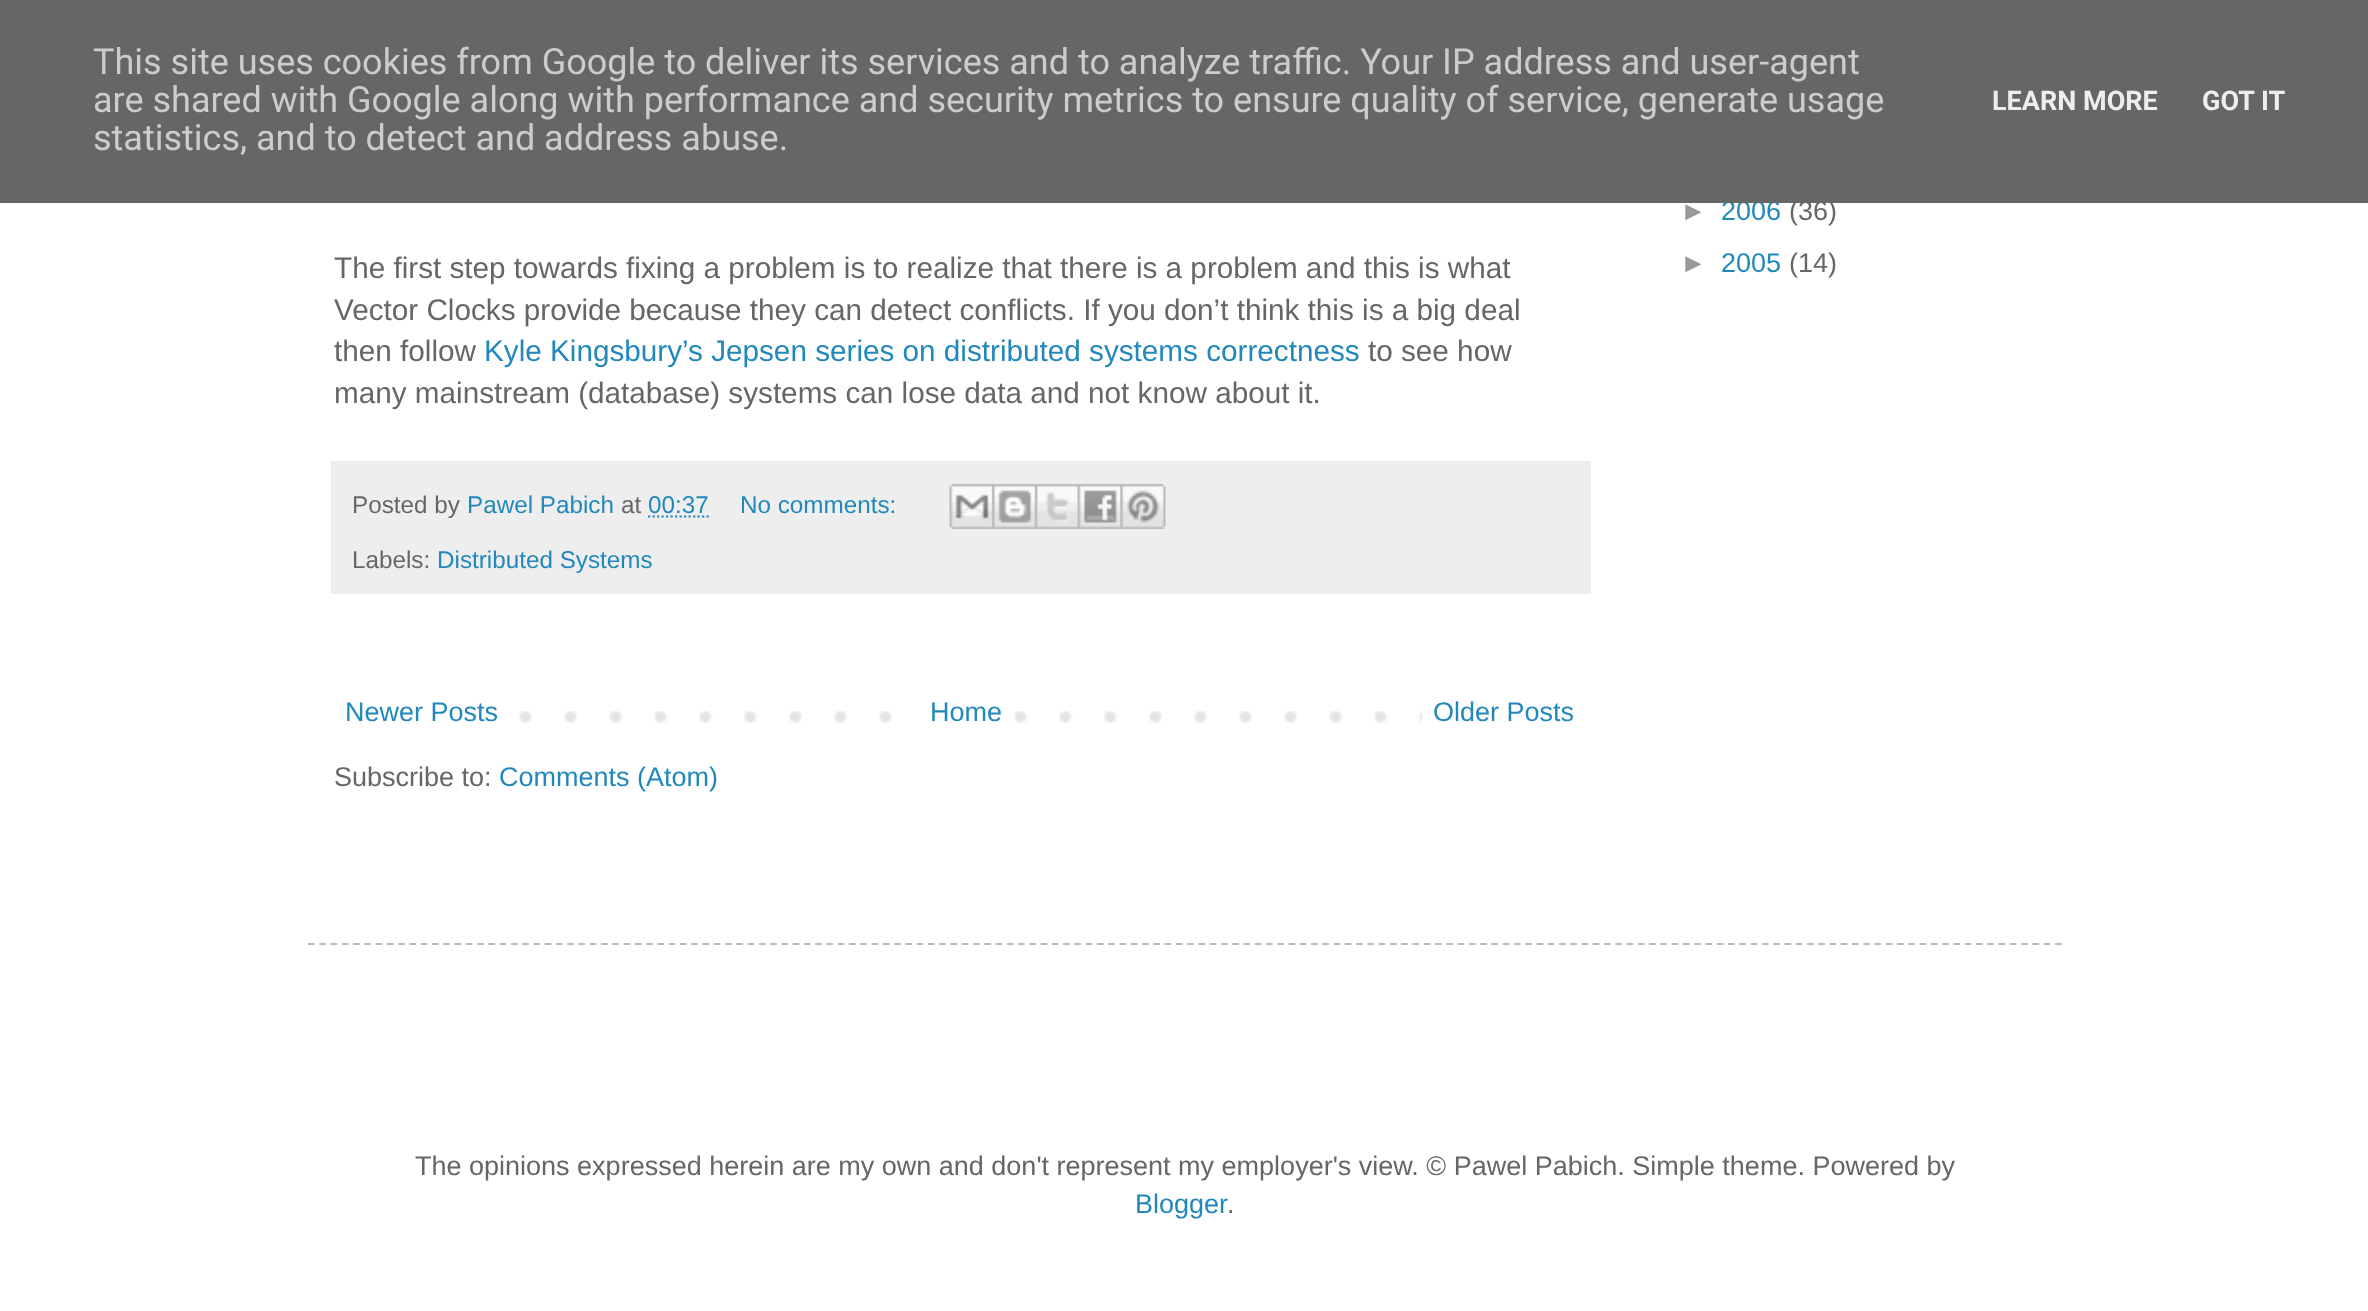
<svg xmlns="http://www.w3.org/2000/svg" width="2368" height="1311">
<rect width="100%" height="100%" fill="#fff"/>
<text x="1721" y="220" style="font-family:Liberation Sans;font-size:27px;fill:#28b">2006</text>
<rect width="2368" height="203" fill="#666"/>
<text x="93" y="74" style="font-family:Roboto;font-size:36px;fill:#ccc">This site uses cookies from Google to deliver its services and to analyze traffic. Your IP address and user-agent</text>
<text x="93" y="112" style="font-family:Roboto;font-size:36px;fill:#ccc">are shared with Google along with performance and security metrics to ensure quality of service, generate usage</text>
<text x="93" y="150" style="font-family:Roboto;font-size:36px;fill:#ccc">statistics, and to detect and address abuse.</text>
<text x="1992" y="110" style="font-family:Roboto;font-size:27px;font-weight:bold;fill:#eee">LEARN MORE</text>
<text x="2202" y="110" style="font-family:Roboto;font-size:27px;font-weight:bold;fill:#eee">GOT IT</text>
<text x="1680" y="220" style="font-family:Liberation Sans;font-size:27px;fill:#999">►</text>
<text x="1789" y="220" style="font-family:Liberation Sans;font-size:27px;fill:#666">(36)</text>
<text x="1680" y="272" style="font-family:Liberation Sans;font-size:27px;fill:#999">►</text>
<text x="1721" y="272" style="font-family:Liberation Sans;font-size:27px;fill:#28b">2005</text>
<text x="1789" y="272" style="font-family:Liberation Sans;font-size:27px;fill:#666">(14)</text>
<text x="334" y="278" style="font-family:Liberation Sans;font-size:29.7px;fill:#666">The first step towards fixing a problem is to realize that there is a problem and this is what</text>
<text x="334" y="320" style="font-family:Liberation Sans;font-size:29.7px;fill:#666">Vector Clocks provide because they can detect conflicts. If you don’t think this is a big deal</text>
<text x="334" y="361" style="font-family:Liberation Sans;font-size:29.7px;fill:#666">then follow</text>
<text x="484" y="361" style="font-family:Liberation Sans;font-size:29.7px;fill:#28b">Kyle Kingsbury’s Jepsen series on distributed systems correctness</text>
<text x="1368" y="361" style="font-family:Liberation Sans;font-size:29.7px;fill:#666">to see how</text>
<text x="334" y="403" style="font-family:Liberation Sans;font-size:29.7px;fill:#666">many mainstream (database) systems can lose data and not know about it.</text>
<rect x="331" y="461" width="1260" height="133" fill="#eee"/>
<text x="352" y="513" style="font-family:Liberation Sans;font-size:24.25px;fill:#666">Posted by</text>
<text x="467" y="513" style="font-family:Liberation Sans;font-size:24.25px;fill:#28b">Pawel Pabich</text>
<text x="621" y="513" style="font-family:Liberation Sans;font-size:24.25px;fill:#666">at</text>
<text x="648" y="513" style="font-family:Liberation Sans;font-size:24.25px;fill:#28b">00:37</text>
<path d="M648 516.5h61" fill="none" stroke="#28b" stroke-width="2.2" stroke-dasharray="2.25 2.25"/>
<text x="740" y="513" style="font-family:Liberation Sans;font-size:24.25px;fill:#28b">No comments:</text>
<image x="949" y="484" width="44" height="45" href="media/1.png"/>
<image x="992" y="484" width="43" height="45" href="media/2.png"/>
<image x="1035" y="484" width="43" height="45" href="media/3.png"/>
<image x="1077" y="484" width="44" height="45" href="media/4.png"/>
<image x="1120" y="484" width="46" height="45" href="media/5.png"/>
<text x="352" y="568" style="font-family:Liberation Sans;font-size:24.25px;fill:#666">Labels:</text>
<text x="437" y="568" style="font-family:Liberation Sans;font-size:24.25px;fill:#28b">Distributed Systems</text>
<image x="519" y="711" width="903" height="12" href="media/6.png"/>
<text x="345" y="721" style="font-family:Liberation Sans;font-size:27px;fill:#28b">Newer Posts</text>
<rect x="924" y="711" width="59" height="12" fill="#fff"/>
<text x="930" y="721" style="font-family:Liberation Sans;font-size:27px;fill:#28b">Home</text>
<text x="1433" y="721" style="font-family:Liberation Sans;font-size:27px;fill:#28b">Older Posts</text>
<text x="334" y="786" style="font-family:Liberation Sans;font-size:27px;fill:#666">Subscribe to:</text>
<text x="499" y="786" style="font-family:Liberation Sans;font-size:27px;fill:#28b">Comments (Atom)</text>
<path d="M308 944h1755" fill="none" stroke="#bbb" stroke-width="2.2" stroke-dasharray="6.75 4.52"/>
<text x="415" y="1175" style="font-family:Liberation Sans;font-size:27px;fill:#666">The opinions expressed herein are my own and don't represent my employer's view. © Pawel Pabich. Simple theme. Powered by</text>
<text x="1135" y="1213" style="font-family:Liberation Sans;font-size:27px;fill:#28b">Blogger</text>
<text x="1227" y="1213" style="font-family:Liberation Sans;font-size:27px;fill:#666">.</text>
</svg>
